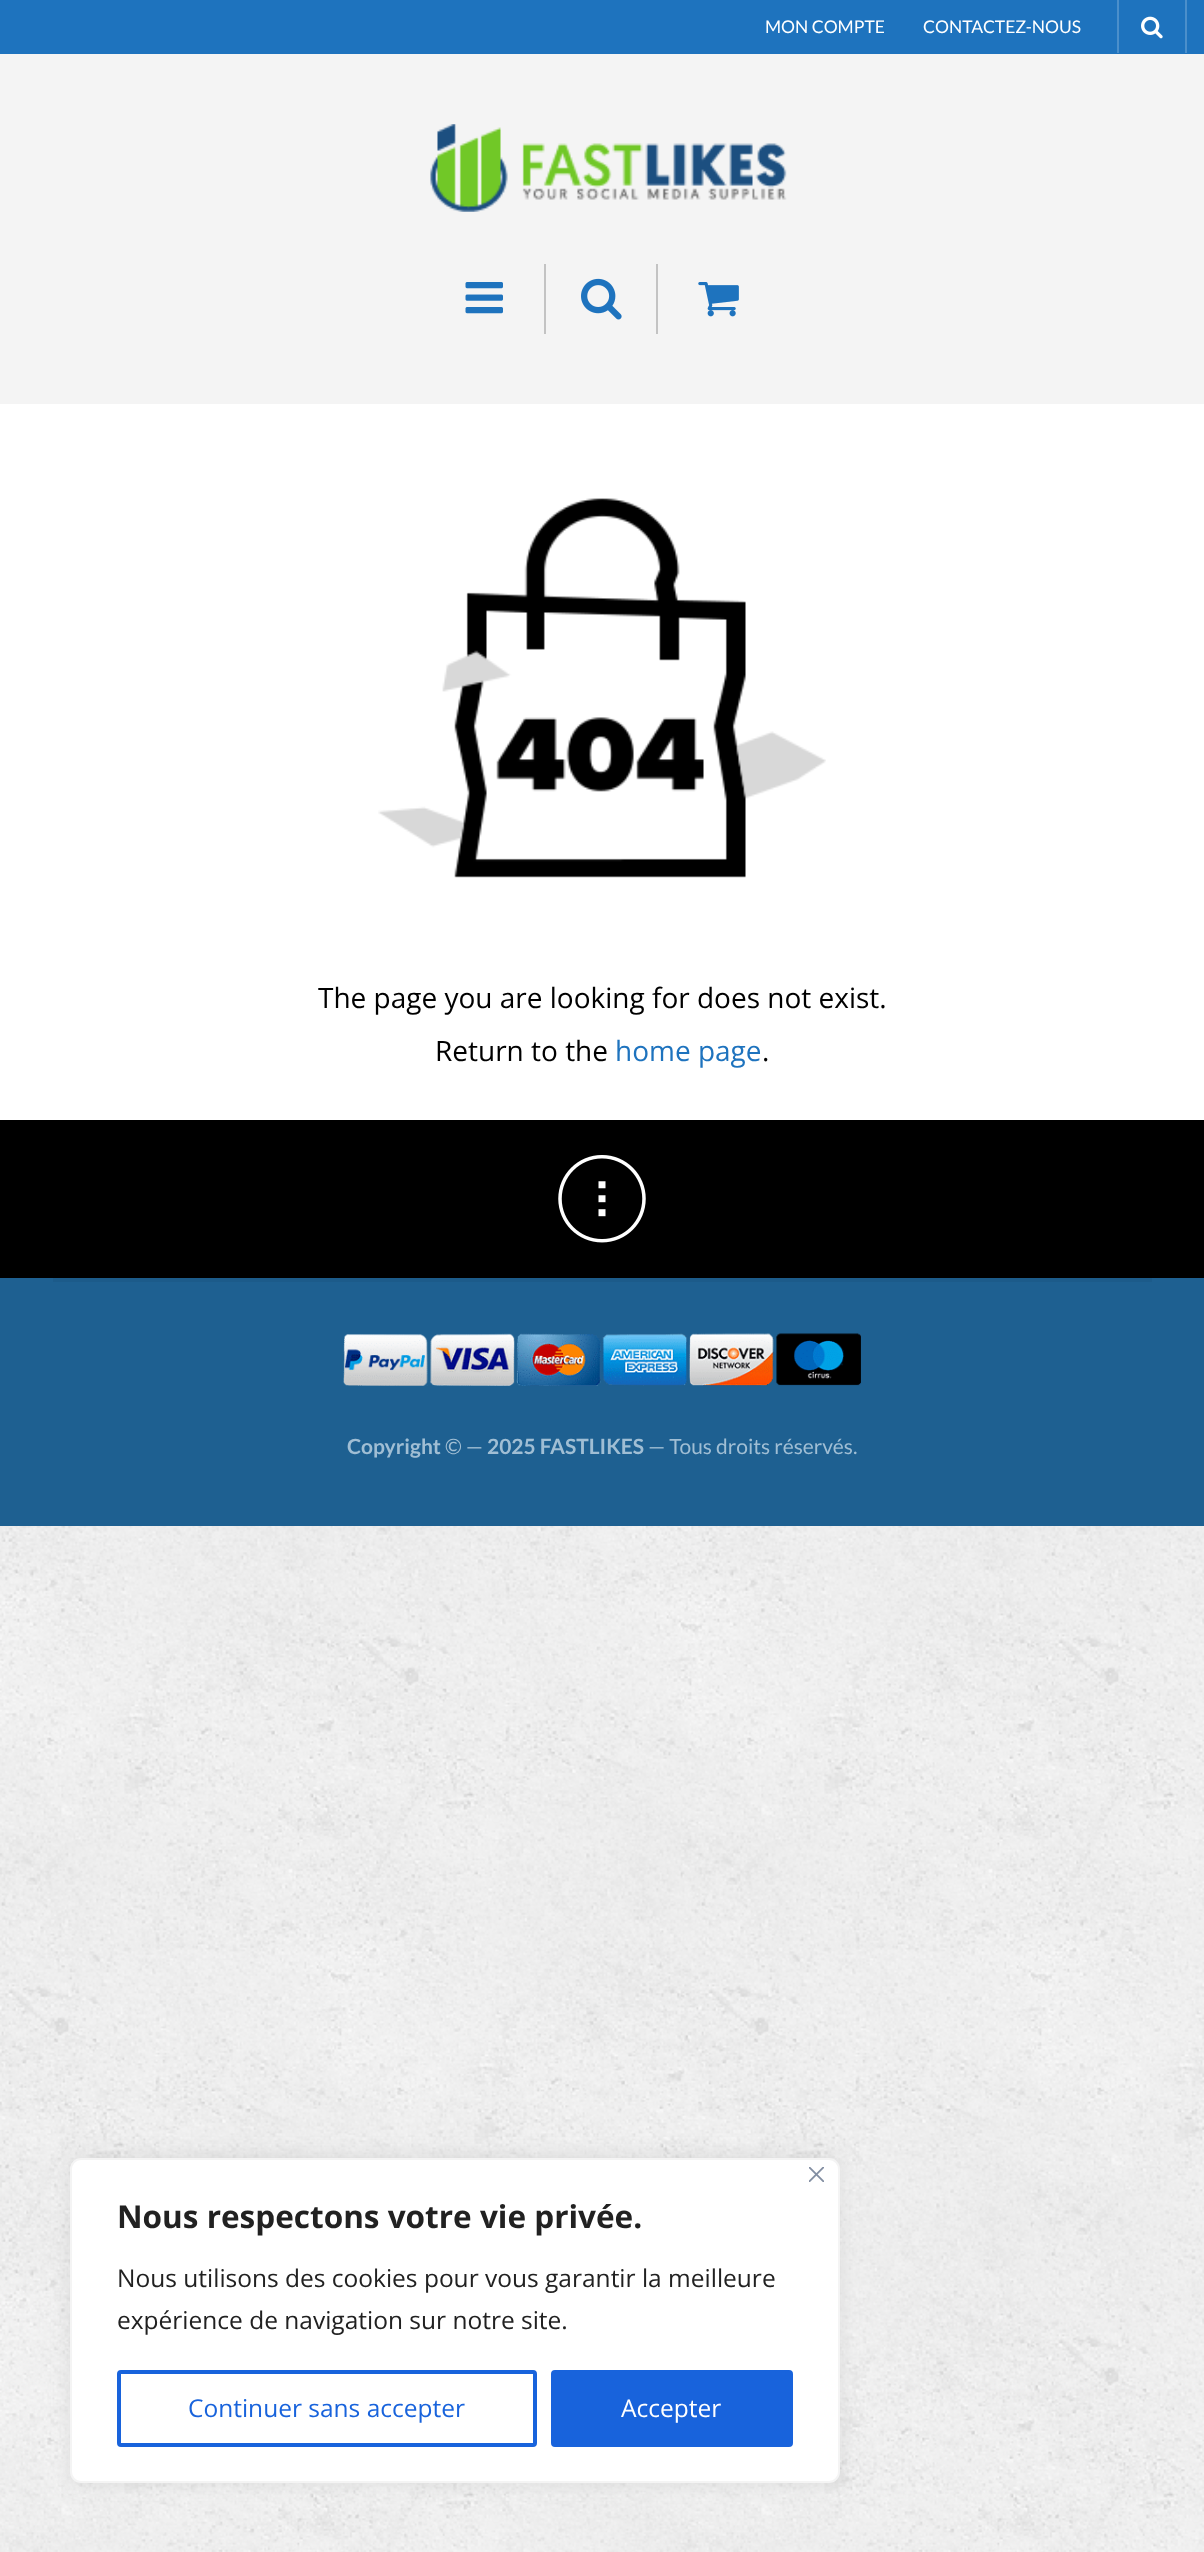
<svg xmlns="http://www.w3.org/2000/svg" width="1204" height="2552">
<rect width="100%" height="100%" fill="#fff"/>
<image x="0" y="1526" width="1204" height="1026" href="media/1.png"/>
<rect width="1204" height="54" fill="#1e73be"/>
<text x="765" y="33" style="font-family:Lato;font-size:17.5px;fill:#fff">MON COMPTE</text>
<text x="923" y="33" style="font-family:Lato;font-size:17.5px;fill:#fff">CONTACTEZ-NOUS</text>
<rect x="1185" width="2" height="53" fill="#4b8fcb"/>
<rect x="1117" width="2" height="53" fill="#4b8fcb"/>
<image x="1141" y="16" width="22" height="23" href="media/2.png"/>
<rect y="54" width="1204" height="350" fill="#f4f4f4"/>
<image x="430" y="124" width="357" height="88" href="media/3.png"/>
<image x="465" y="282" width="38" height="32" href="media/4.png"/>
<rect x="656" y="264" width="2" height="70" fill="#c3c3c3"/>
<rect x="544" y="264" width="2" height="70" fill="#c3c3c3"/>
<image x="581" y="278" width="41" height="42" href="media/5.png"/>
<image x="698" y="282" width="41" height="35" href="media/6.png"/>
<image x="378" y="498" width="448" height="380" href="media/7.png"/>
<text x="318" y="1008" style="font-family:Open Sans;font-size:28px;fill:#000">The page you are looking for does not exist.</text>
<text x="435" y="1061" style="font-family:Open Sans;font-size:28px;fill:#000">Return to the</text>
<text x="615" y="1061" style="font-family:Open Sans;font-size:28px;fill:#1e73be">home page</text>
<text x="762" y="1061" style="font-family:Open Sans;font-size:28px;fill:#000">.</text>
<rect y="1120" width="1204" height="158" fill="#000"/>
<image x="558" y="1155" width="88" height="88" href="media/8.png"/>
<rect y="1278" width="1204" height="248" fill="#1e6091"/>
<rect x="53" y="1278" width="1099" height="4" fill="#1c5b8a"/>
<image x="343" y="1333" width="518" height="53" href="media/9.png"/>
<text x="347" y="1454" style="font-family:Lato;font-size:21px;font-weight:bold;fill:#a0bed4">Copyright</text>
<text x="445" y="1454" style="font-family:Lato;font-size:21px;fill:#a0bed4">© —</text>
<text x="487" y="1454" style="font-family:Lato;font-size:21px;font-weight:bold;fill:#a0bed4">2025 FASTLIKES</text>
<text x="648" y="1454" style="font-family:Lato;font-size:21px;fill:#a0bed4">— Tous droits réservés.</text>
<rect x="70" y="2156" width="770" height="326" rx="11" fill="#acabab4d" filter="blur(9px)"/>
<rect x="71" y="2159" width="768" height="323" rx="10" fill="#fff" stroke="#f4f4f4" stroke-width="2"/>
<image x="809" y="2167" width="15" height="15" href="media/10.png"/>
<text x="117" y="2228" style="font-family:Open Sans;font-size:31.5px;font-weight:bold;fill:#212121">Nous respectons votre vie privée.</text>
<text x="117" y="2287" style="font-family:Open Sans;font-size:24.5px;fill:#212121">Nous utilisons des cookies pour vous garantir la meilleure</text>
<text x="117" y="2329" style="font-family:Open Sans;font-size:24.5px;fill:#212121">expérience de navigation sur notre site.</text>
<rect x="119" y="2372" width="416" height="73" rx="2" fill="none" stroke="#1863dc" stroke-width="4"/>
<text x="188" y="2417" style="font-family:Open Sans;font-size:24.5px;fill:#1863dc">Continuer sans accepter</text>
<rect x="553" y="2372" width="238" height="73" rx="2" fill="#1863dc" stroke="#1863dc" stroke-width="4"/>
<text x="621" y="2417" style="font-family:Open Sans;font-size:24.5px;fill:#fff">Accepter</text>
</svg>
